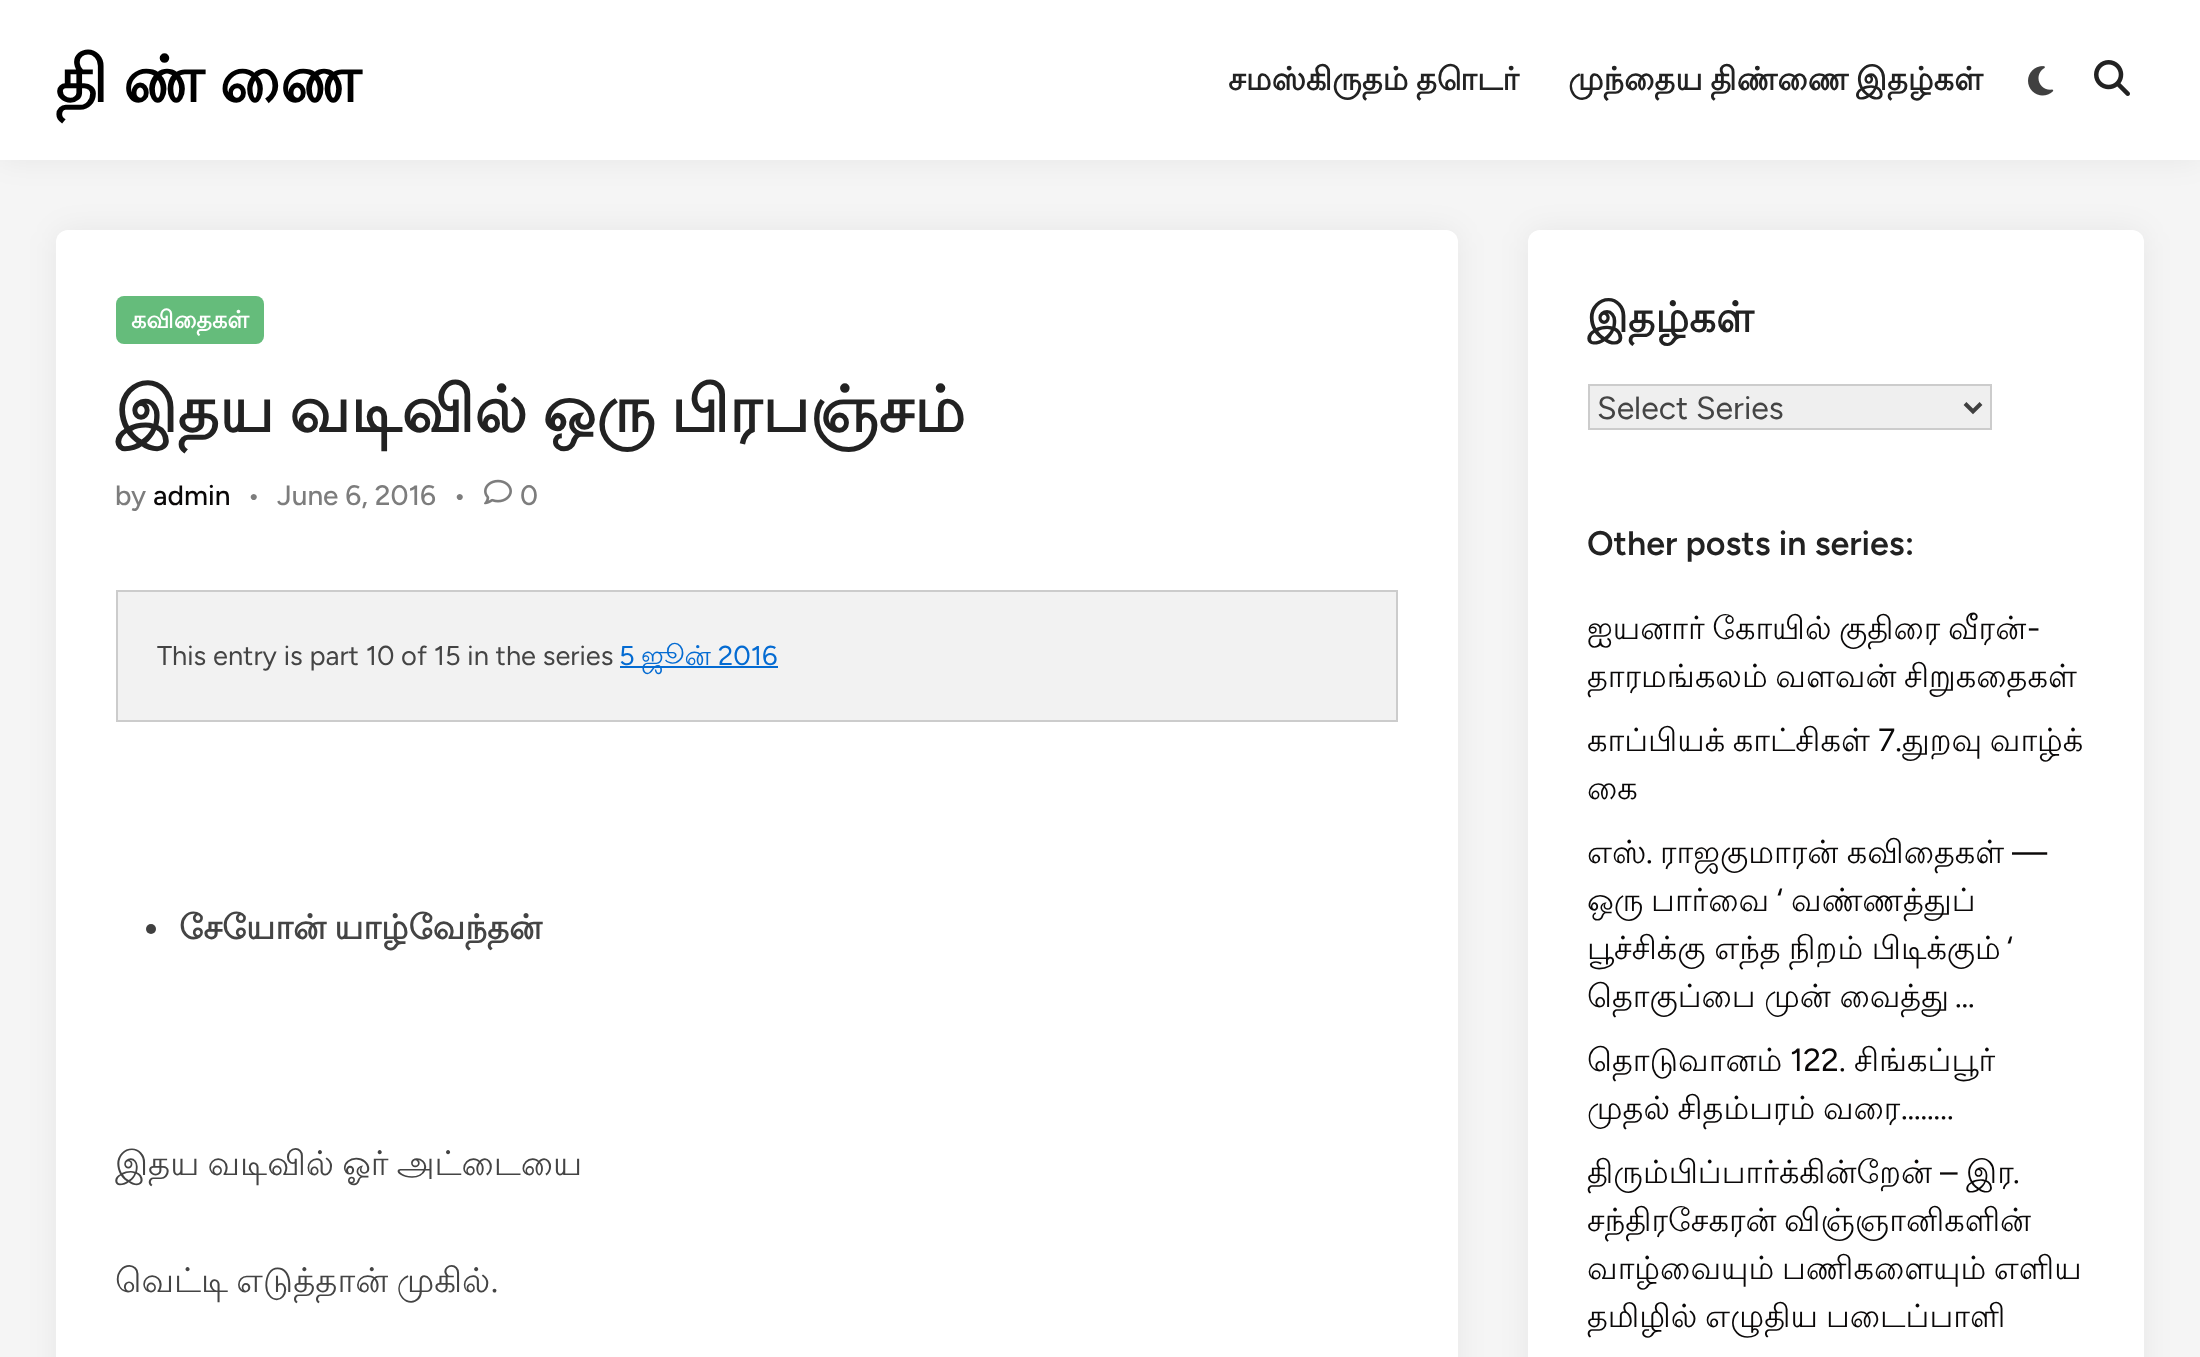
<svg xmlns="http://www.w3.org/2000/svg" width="2200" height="1357">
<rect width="100%" height="100%" fill="#f5f5f5"/>
<rect width="2200" height="160" fill="#0000000f" filter="blur(15px)"/>
<rect width="2200" height="160" fill="#fff"/>
<text x="55" y="102" word-spacing="-4" style="font-family:Lohit Tamil;font-size:64px;font-weight:bold;fill:#000">தி ண் ணை</text>
<text x="1228" y="90" word-spacing="-2" style="font-family:Lohit Tamil;font-size:32px;font-weight:bold;fill:#222">சமஸ்கிருதம் தொடர்</text>
<text x="1568" y="90" word-spacing="-2" style="font-family:Lohit Tamil;font-size:32px;font-weight:bold;fill:#222">முந்தைய திண்ணை இதழ்கள்</text>
<image x="2028" y="66" width="26" height="30" href="media/1.png"/>
<image x="2094" y="60" width="36" height="36" href="media/2.png"/>
<rect x="56" y="230" width="1402" height="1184" rx="12" fill="#0000000f" filter="blur(15px)"/>
<rect x="56" y="230" width="1402" height="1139" rx="12" fill="#fff"/>
<rect x="116" y="296" width="148" height="48" rx="8" fill="#65bc7b"/>
<text x="131" y="328" style="font-family:Lohit Tamil;font-size:24px;font-weight:bold;fill:#fff">கவிதைகள்</text>
<text x="115" y="432" word-spacing="-4" style="font-family:Lohit Tamil;font-size:64px;font-weight:bold;fill:#222">இதய வடிவில் ஒரு பிரபஞ்சம்</text>
<text x="115" y="505" style="font-family:Figtree;font-size:28px;font-weight:500;fill:#7d7d7d">by</text>
<text x="153" y="505" style="font-family:Figtree;font-size:28px;font-weight:500;fill:#0a0808">admin</text>
<text x="247" y="505" style="font-family:Figtree;font-size:28px;font-weight:500;fill:#7d7d7d">•</text>
<text x="277" y="505" style="font-family:Figtree;font-size:28px;font-weight:500;fill:#7d7d7d">June 6, 2016</text>
<text x="453" y="505" style="font-family:Figtree;font-size:28px;font-weight:500;fill:#7d7d7d">•</text>
<image x="484" y="479" width="28" height="26" href="media/3.png"/>
<text x="520" y="505" style="font-family:Figtree;font-size:28px;font-weight:500;fill:#7d7d7d">0</text>
<rect x="117" y="591" width="1280" height="130" fill="#f2f2f2" stroke="#ccc" stroke-width="2"/>
<text x="157" y="665" style="font-family:Figtree;font-size:27.25px;fill:#444">This entry is part 10 of 15 in the series</text>
<text x="619" y="665" style="font-family:Figtree;font-size:27.25px;fill:#046bd2">5</text>
<rect x="620" y="666" width="158" height="2" fill="#046bd2"/>
<text x="641" y="665" style="font-family:Lohit Tamil;font-size:27.25px;fill:#046bd2">ஜூன்</text>
<text x="718" y="665" style="font-family:Figtree;font-size:27.25px;fill:#046bd2">2016</text>
<circle cx="151" cy="929" r="5" fill="#404040"/>
<text x="179" y="939" word-spacing="-2" style="font-family:Lohit Tamil;font-size:34px;font-weight:bold;fill:#444">சேயோன் யாழ்வேந்தன்</text>
<text x="115" y="1175" word-spacing="-2" style="font-family:Lohit Tamil;font-size:34px;fill:#444">இதய வடிவில் ஓர் அட்டையை</text>
<text x="115" y="1292" word-spacing="-2" style="font-family:Lohit Tamil;font-size:34px;fill:#444">வெட்டி எடுத்தான் முகில்</text>
<text x="491" y="1292" style="font-family:Figtree;font-size:34px;fill:#444">.</text>
<rect x="1528" y="230" width="616" height="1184" rx="12" fill="#0000000f" filter="blur(15px)"/>
<rect x="1528" y="230" width="616" height="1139" rx="12" fill="#fff"/>
<text x="1587" y="332" style="font-family:Lohit Tamil;font-size:42px;font-weight:bold;fill:#222">இதழ்கள்</text>
<rect x="1589" y="385" width="402" height="44" fill="#efefef" stroke="#ccc" stroke-width="2"/>
<path d="M1965 403.5l8 8l8-8" fill="none" stroke="#404040" stroke-width="4"/>
<text x="1597" y="419" style="font-family:Figtree;font-size:32px;fill:#444">Select Series</text>
<text x="1587" y="555" style="font-family:Figtree;font-size:34px;font-weight:600;fill:#222">Other posts in series:</text>
<text x="1587" y="639" word-spacing="-2" style="font-family:Lohit Tamil;font-size:32px;fill:#0a0808">ஐயனார் கோயில் குதிரை வீரன்</text>
<text x="2027" y="639" style="font-family:Figtree;font-size:32px;fill:#0a0808">-</text>
<text x="1587" y="687" word-spacing="-2" style="font-family:Lohit Tamil;font-size:32px;fill:#0a0808">தாரமங்கலம் வளவன் சிறுகதைகள்</text>
<text x="1587" y="751" word-spacing="-2" style="font-family:Lohit Tamil;font-size:32px;fill:#0a0808">காப்பியக் காட்சிகள்</text>
<text x="1878" y="751" style="font-family:Figtree;font-size:32px;fill:#0a0808">7.</text>
<text x="1902" y="751" word-spacing="-2" style="font-family:Lohit Tamil;font-size:32px;fill:#0a0808">துறவு வாழ்க்</text>
<text x="1587" y="799" style="font-family:Lohit Tamil;font-size:32px;fill:#0a0808">கை</text>
<text x="1587" y="863" style="font-family:Lohit Tamil;font-size:32px;fill:#0a0808">எஸ்</text>
<text x="1660" y="863" word-spacing="-1" style="font-family:Lohit Tamil;font-size:32px;fill:#0a0808">ராஜகுமாரன் கவிதைகள்</text>
<text x="2012" y="863" style="font-family:Figtree;font-size:32px;fill:#0a0808">—</text>
<text x="1646" y="863" style="font-family:Figtree;font-size:32px;fill:#0a0808">.</text>
<text x="1587" y="911" word-spacing="-2" style="font-family:Lohit Tamil;font-size:32px;fill:#0a0808">ஒரு பார்வை</text>
<text x="1777" y="911" style="font-family:Figtree;font-size:32px;fill:#0a0808">‘</text>
<text x="1791" y="911" style="font-family:Lohit Tamil;font-size:32px;fill:#0a0808">வண்ணத்துப்</text>
<text x="1587" y="959" word-spacing="-1" style="font-family:Lohit Tamil;font-size:32px;fill:#0a0808">பூச்சிக்கு எந்த நிறம் பிடிக்கும்</text>
<text x="2007" y="959" style="font-family:Figtree;font-size:32px;fill:#0a0808">‘</text>
<text x="1587" y="1007" word-spacing="-1" style="font-family:Lohit Tamil;font-size:32px;fill:#0a0808">தொகுப்பை முன் வைத்து</text>
<text x="1955" y="1007" style="font-family:Figtree;font-size:32px;fill:#0a0808">…</text>
<text x="1587" y="1071" style="font-family:Lohit Tamil;font-size:32px;fill:#0a0808">தொடுவானம்</text>
<text x="1790" y="1071" style="font-family:Figtree;font-size:32px;fill:#0a0808">122.</text>
<text x="1854" y="1071" style="font-family:Lohit Tamil;font-size:32px;fill:#0a0808">சிங்கப்பூர்</text>
<text x="1587" y="1119" word-spacing="-2" style="font-family:Lohit Tamil;font-size:32px;fill:#0a0808">முதல் சிதம்பரம் வரை</text>
<text x="1901" y="1119" style="font-family:Figtree;font-size:32px;fill:#0a0808">……..</text>
<text x="1587" y="1183" style="font-family:Lohit Tamil;font-size:32px;fill:#0a0808">திரும்பிப்பார்க்கின்றேன்</text>
<text x="1940" y="1183" style="font-family:Figtree;font-size:32px;fill:#0a0808">–</text>
<text x="1966" y="1183" style="font-family:Lohit Tamil;font-size:32px;fill:#0a0808">இர</text>
<text x="2013" y="1183" style="font-family:Figtree;font-size:32px;fill:#0a0808">.</text>
<text x="1587" y="1231" style="font-family:Lohit Tamil;font-size:32px;fill:#0a0808">சந்திரசேகரன்</text>
<text x="1784" y="1231" style="font-family:Lohit Tamil;font-size:32px;fill:#0a0808">விஞ்ஞானிகளின்</text>
<text x="1587" y="1279" style="font-family:Lohit Tamil;font-size:32px;fill:#0a0808">வாழ்வையும்</text>
<text x="1782" y="1279" word-spacing="-2" style="font-family:Lohit Tamil;font-size:32px;fill:#0a0808">பணிகளையும் எளிய</text>
<text x="1587" y="1327" style="font-family:Lohit Tamil;font-size:32px;fill:#0a0808">தமிழில்</text>
<text x="1705" y="1327" style="font-family:Lohit Tamil;font-size:32px;fill:#0a0808">எழுதிய</text>
<text x="1826" y="1327" style="font-family:Lohit Tamil;font-size:32px;fill:#0a0808">படைப்பாளி</text>
</svg>
